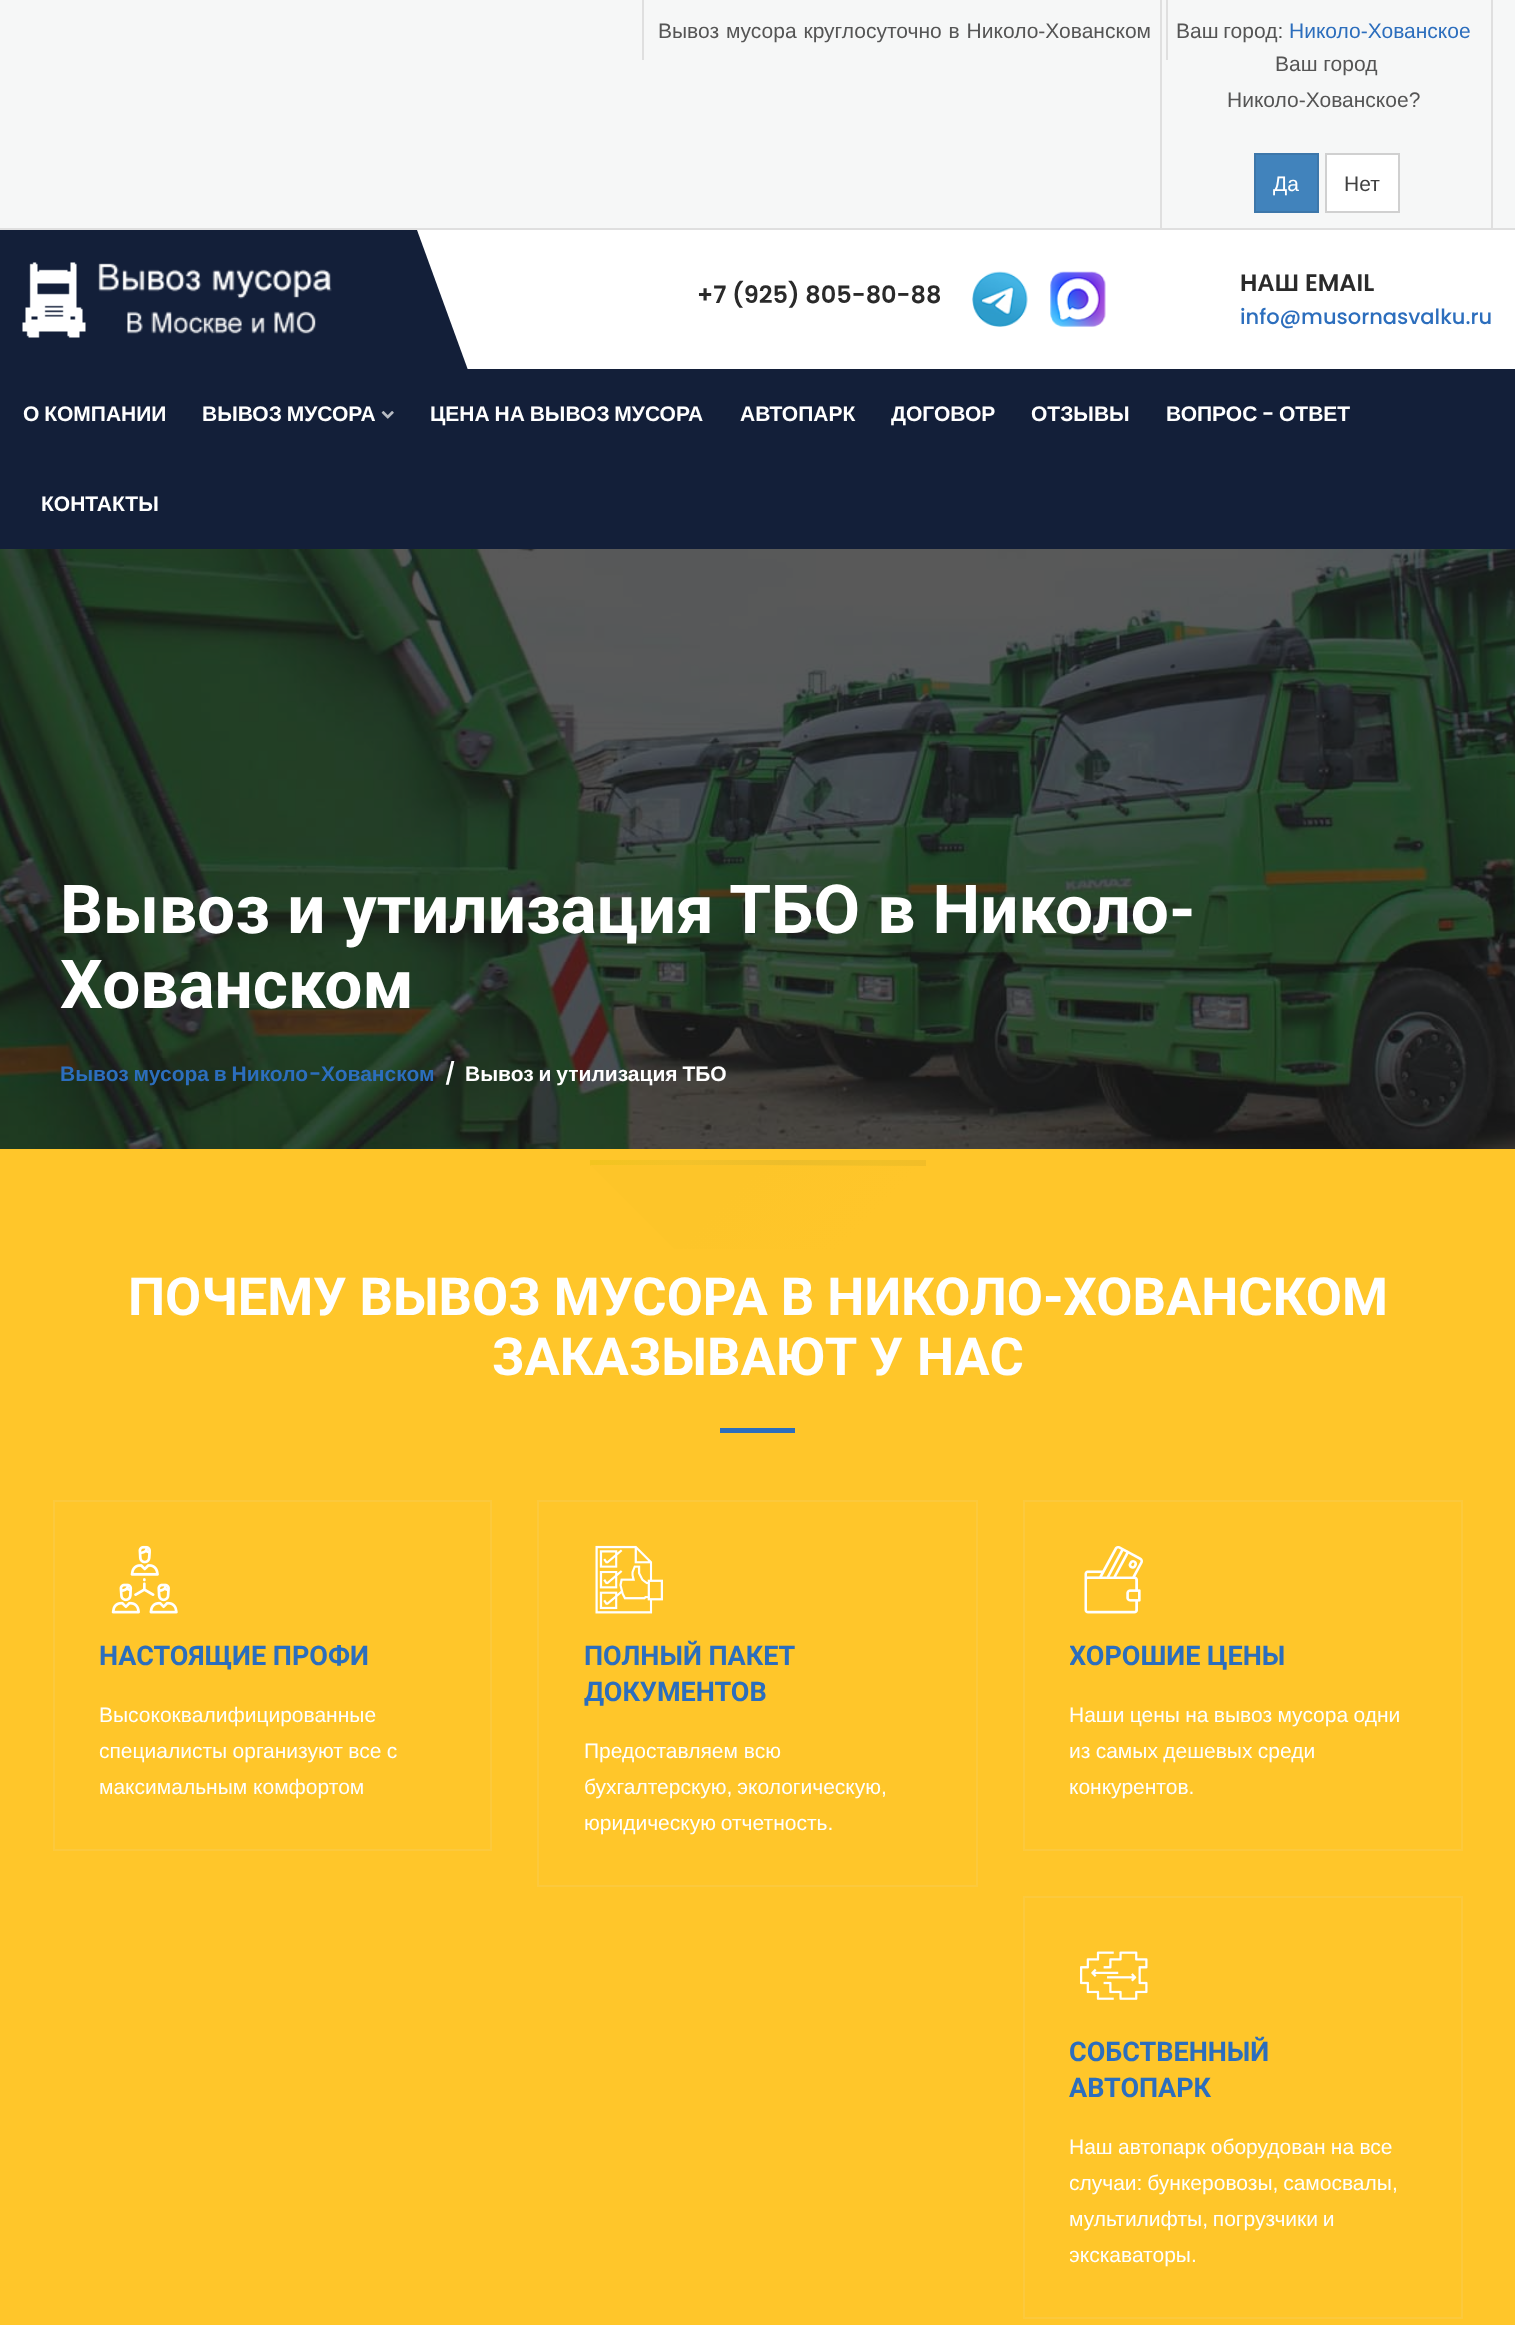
<svg xmlns="http://www.w3.org/2000/svg" width="1515" height="2325">
<defs>
<clipPath id="clip1"><rect x="1070" y="1638" width="346" height="167"/></clipPath>
<clipPath id="clip2"><rect x="1070" y="2034" width="346" height="239"/></clipPath>
<linearGradient id="g1" gradientUnits="userSpaceOnUse" x1="590" y1="1163" x2="1073" y2="1163"><stop offset="0" stop-color="#f2c41f"/><stop offset="0.2" stop-color="#f3c22a"/><stop offset="0.4" stop-color="#ecbd2b"/><stop offset="0.6" stop-color="#f0c028"/><stop offset="0.8" stop-color="#f3ba28"/><stop offset="1" stop-color="#ffb71e"/></linearGradient>
<linearGradient id="g2" gradientUnits="userSpaceOnUse" x1="758" y1="1165" x2="842" y2="1249"><stop offset="0" stop-color="#fdc529"/><stop offset="1" stop-color="#fdc529" stop-opacity="0"/></linearGradient>
</defs>
<rect width="100%" height="100%" fill="#fff"/>
<rect width="1515" height="228" fill="#f6f7f7"/>
<rect y="228" width="1515" height="2" fill="#dfdfdf"/>
<rect x="1166" width="2" height="60" fill="#dfdfdf"/>
<rect x="642" width="2" height="60" fill="#dfdfdf"/>
<text x="658" y="38" word-spacing="1" style="font-family:Liberation Sans;font-size:21px;fill:#555">Вывоз мусора круглосуточно в Николо-Хованском</text>
<rect x="1491" width="2" height="228" fill="#dfdfdf"/>
<rect x="1160" width="2" height="228" fill="#dfdfdf"/>
<text x="1176" y="38" word-spacing="-1" style="font-family:Liberation Sans;font-size:21px;fill:#555">Ваш город:</text>
<text x="1289" y="38" style="font-family:Liberation Sans;font-size:21px;fill:#2c6ebd">Николо-Хованское</text>
<text x="1275" y="71" style="font-family:Liberation Sans;font-size:21px;fill:#555">Ваш город</text>
<text x="1227" y="107" style="font-family:Liberation Sans;font-size:21px;fill:#555">Николо-Хованское?</text>
<rect x="1255" y="154" width="63" height="58" fill="#4183bc" stroke="#3d77aa" stroke-width="2"/>
<text x="1273" y="191" style="font-family:Liberation Sans;font-size:21px;fill:#fff">Да</text>
<rect x="1326" y="154" width="73" height="58" fill="#fff" stroke="#d0d0d0" stroke-width="2"/>
<text x="1344" y="191" style="font-family:Liberation Sans;font-size:21px;fill:#414141">Нет</text>
<rect y="369" width="1515" height="180" fill="#131f39"/>
<path d="M-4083 230h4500l51 140h-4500z" fill="#131f39"/>
<image x="22" y="262" width="310" height="76" href="media/1.png"/>
<text x="697" y="303" style="font-family:Poppins;font-size:24px;font-weight:600;fill:#2a2a2a">+7 (925) 805-80-88</text>
<image x="972" y="271" width="56" height="56" href="media/2.png"/>
<image x="1050" y="271" width="56" height="56" href="media/3.png"/>
<text x="1240" y="291" style="font-family:Liberation Sans;font-size:24px;font-weight:bold;fill:#2a2a2a">НАШ</text>
<text x="1305" y="291" style="font-family:Poppins;font-size:24px;font-weight:600;fill:#2a2a2a">EMAIL</text>
<text x="1240" y="324" style="font-family:Poppins;font-size:21px;font-weight:500;fill:#2c6ebd">info@musornasvalku.ru</text>
<text x="23" y="421" word-spacing="-1" style="font-family:Liberation Sans;font-size:21px;font-weight:bold;fill:#fff">О КОМПАНИИ</text>
<text x="202" y="421" word-spacing="-1" style="font-family:Liberation Sans;font-size:21px;font-weight:bold;fill:#fff">ВЫВОЗ МУСОРА</text>
<image x="381" y="411" width="13" height="8" href="media/4.png"/>
<text x="430" y="421" word-spacing="-1" style="font-family:Liberation Sans;font-size:21px;font-weight:bold;fill:#fff">ЦЕНА НА ВЫВОЗ МУСОРА</text>
<text x="740" y="421" style="font-family:Liberation Sans;font-size:21px;font-weight:bold;fill:#fff">АВТОПАРК</text>
<text x="891" y="421" style="font-family:Liberation Sans;font-size:21px;font-weight:bold;fill:#fff">ДОГОВОР</text>
<text x="1031" y="421" style="font-family:Liberation Sans;font-size:21px;font-weight:bold;fill:#fff">ОТЗЫВЫ</text>
<text x="1166" y="421" style="font-family:Liberation Sans;font-size:21px;font-weight:bold;fill:#fff">ВОПРОС</text>
<text x="1262" y="421" style="font-family:Poppins;font-size:21px;font-weight:600;fill:#fff">-</text>
<text x="1279" y="421" style="font-family:Liberation Sans;font-size:21px;font-weight:bold;fill:#fff">ОТВЕТ</text>
<text x="41" y="511" style="font-family:Liberation Sans;font-size:21px;font-weight:bold;fill:#fff">КОНТАКТЫ</text>
<image x="0" y="549" width="1515" height="600" href="media/5.png"/>
<text x="60" y="933" word-spacing="0.5" style="font-family:Roboto;font-size:67.5px;font-weight:bold;fill:#fff">Вывоз и утилизация ТБО в Николо-</text>
<text x="60" y="1008" style="font-family:Roboto;font-size:67.5px;font-weight:bold;fill:#fff">Хованском</text>
<text x="60" y="1081" word-spacing="-1" style="font-family:Liberation Sans;font-size:21px;font-weight:bold;fill:#2c6ebd">Вывоз мусора в Николо</text>
<text x="309" y="1081" style="font-family:Poppins;font-size:21px;font-weight:600;fill:#2c6ebd">-</text>
<text x="321" y="1081" style="font-family:Liberation Sans;font-size:21px;font-weight:bold;fill:#2c6ebd">Хованском</text>
<text x="445" y="1081" style="font-family:Poppins;font-size:21px;font-weight:600;fill:#fff">/</text>
<text x="465" y="1081" word-spacing="-1" style="font-family:Liberation Sans;font-size:21px;font-weight:bold;fill:#fff">Вывоз и утилизация ТБО</text>
<rect y="1149" width="1515" height="1176" fill="#ffc62a"/>
<text x="128" y="1315" style="font-family:Roboto;font-size:52.5px;font-weight:bold;fill:#fff">ПОЧЕМУ ВЫВОЗ МУСОРА В НИКОЛО-ХОВАНСКОМ</text>
<text x="492" y="1375" word-spacing="1" style="font-family:Roboto;font-size:52.5px;font-weight:bold;fill:#fff">ЗАКАЗЫВАЮТ У НАС</text>
<rect x="720" y="1428" width="75" height="5" fill="#2c6ebd"/>
<rect x="54" y="1501" width="437" height="349" fill="none" stroke="#fcc93d" stroke-width="2"/>
<image x="111" y="1545" width="67" height="69" href="media/6.png"/>
<text x="99" y="1665" style="font-family:Roboto;font-size:27px;font-weight:bold;fill:#2c6ebd">НАСТОЯЩИЕ ПРОФИ</text>
<text x="99" y="1722" style="font-family:Liberation Sans;font-size:21px;fill:#fff">Высококвалифицированные</text>
<text x="99" y="1758" word-spacing="-0.5" style="font-family:Liberation Sans;font-size:21px;fill:#fff">специалисты организуют все с</text>
<text x="99" y="1794" style="font-family:Liberation Sans;font-size:21px;fill:#fff">максимальным комфортом</text>
<rect x="538" y="1501" width="439" height="385" fill="none" stroke="#fcc93d" stroke-width="2"/>
<image x="595" y="1545" width="68" height="69" href="media/7.png"/>
<text x="584" y="1665" style="font-family:Roboto;font-size:27px;font-weight:bold;fill:#2c6ebd">ПОЛНЫЙ ПАКЕТ</text>
<text x="584" y="1701" style="font-family:Roboto;font-size:27px;font-weight:bold;fill:#2c6ebd">ДОКУМЕНТОВ</text>
<text x="584" y="1758" style="font-family:Liberation Sans;font-size:21px;fill:#fff">Предоставляем всю</text>
<text x="584" y="1794" word-spacing="-1" style="font-family:Liberation Sans;font-size:21px;fill:#fff">бухгалтерскую, экологическую,</text>
<text x="584" y="1830" word-spacing="-1" style="font-family:Liberation Sans;font-size:21px;fill:#fff">юридическую отчетность.</text>
<rect x="1024" y="1501" width="438" height="349" fill="none" stroke="#fcc93d" stroke-width="2"/>
<image x="1084" y="1546" width="59" height="68" href="media/8.png"/>
<g clip-path="url(#clip1)">
<text x="1069" y="1665" style="font-family:Roboto;font-size:27px;font-weight:bold;fill:#2c6ebd">ХОРОШИЕ ЦЕНЫ</text>
</g>
<text x="1069" y="1722" word-spacing="-0.5" style="font-family:Liberation Sans;font-size:21px;fill:#fff">Наши цены на вывоз мусора одни</text>
<text x="1069" y="1758" word-spacing="-0.5" style="font-family:Liberation Sans;font-size:21px;fill:#fff">из самых дешевых среди</text>
<text x="1069" y="1794" style="font-family:Liberation Sans;font-size:21px;fill:#fff">конкурентов.</text>
<rect x="1024" y="1897" width="438" height="421" fill="none" stroke="#fcc93d" stroke-width="2"/>
<image x="1080" y="1951" width="68" height="49" href="media/9.png"/>
<text x="1069" y="2061" style="font-family:Roboto;font-size:27px;font-weight:bold;fill:#2c6ebd">СОБСТВЕННЫЙ</text>
<text x="1069" y="2097" style="font-family:Roboto;font-size:27px;font-weight:bold;fill:#2c6ebd">АВТОПАРК</text>
<text x="1069" y="2154" word-spacing="-0.5" style="font-family:Liberation Sans;font-size:21px;fill:#fff">Наш автопарк оборудован на все</text>
<g clip-path="url(#clip2)">
<text x="1069" y="2190" word-spacing="-1" style="font-family:Liberation Sans;font-size:21px;fill:#fff">случаи: бункеровозы, самосвалы,</text>
</g>
<text x="1069" y="2226" word-spacing="-1" style="font-family:Liberation Sans;font-size:21px;fill:#fff">мультилифты, погрузчики и</text>
<g clip-path="url(#clip2)">
<text x="1069" y="2262" style="font-family:Liberation Sans;font-size:21px;fill:#fff">экскаваторы.</text>
</g>
<rect x="590" y="1160" width="336" height="6" fill="url(#g1)"/>
<path d="M590 1165h336l84 84h-336z" fill="url(#g2)"/>
</svg>
